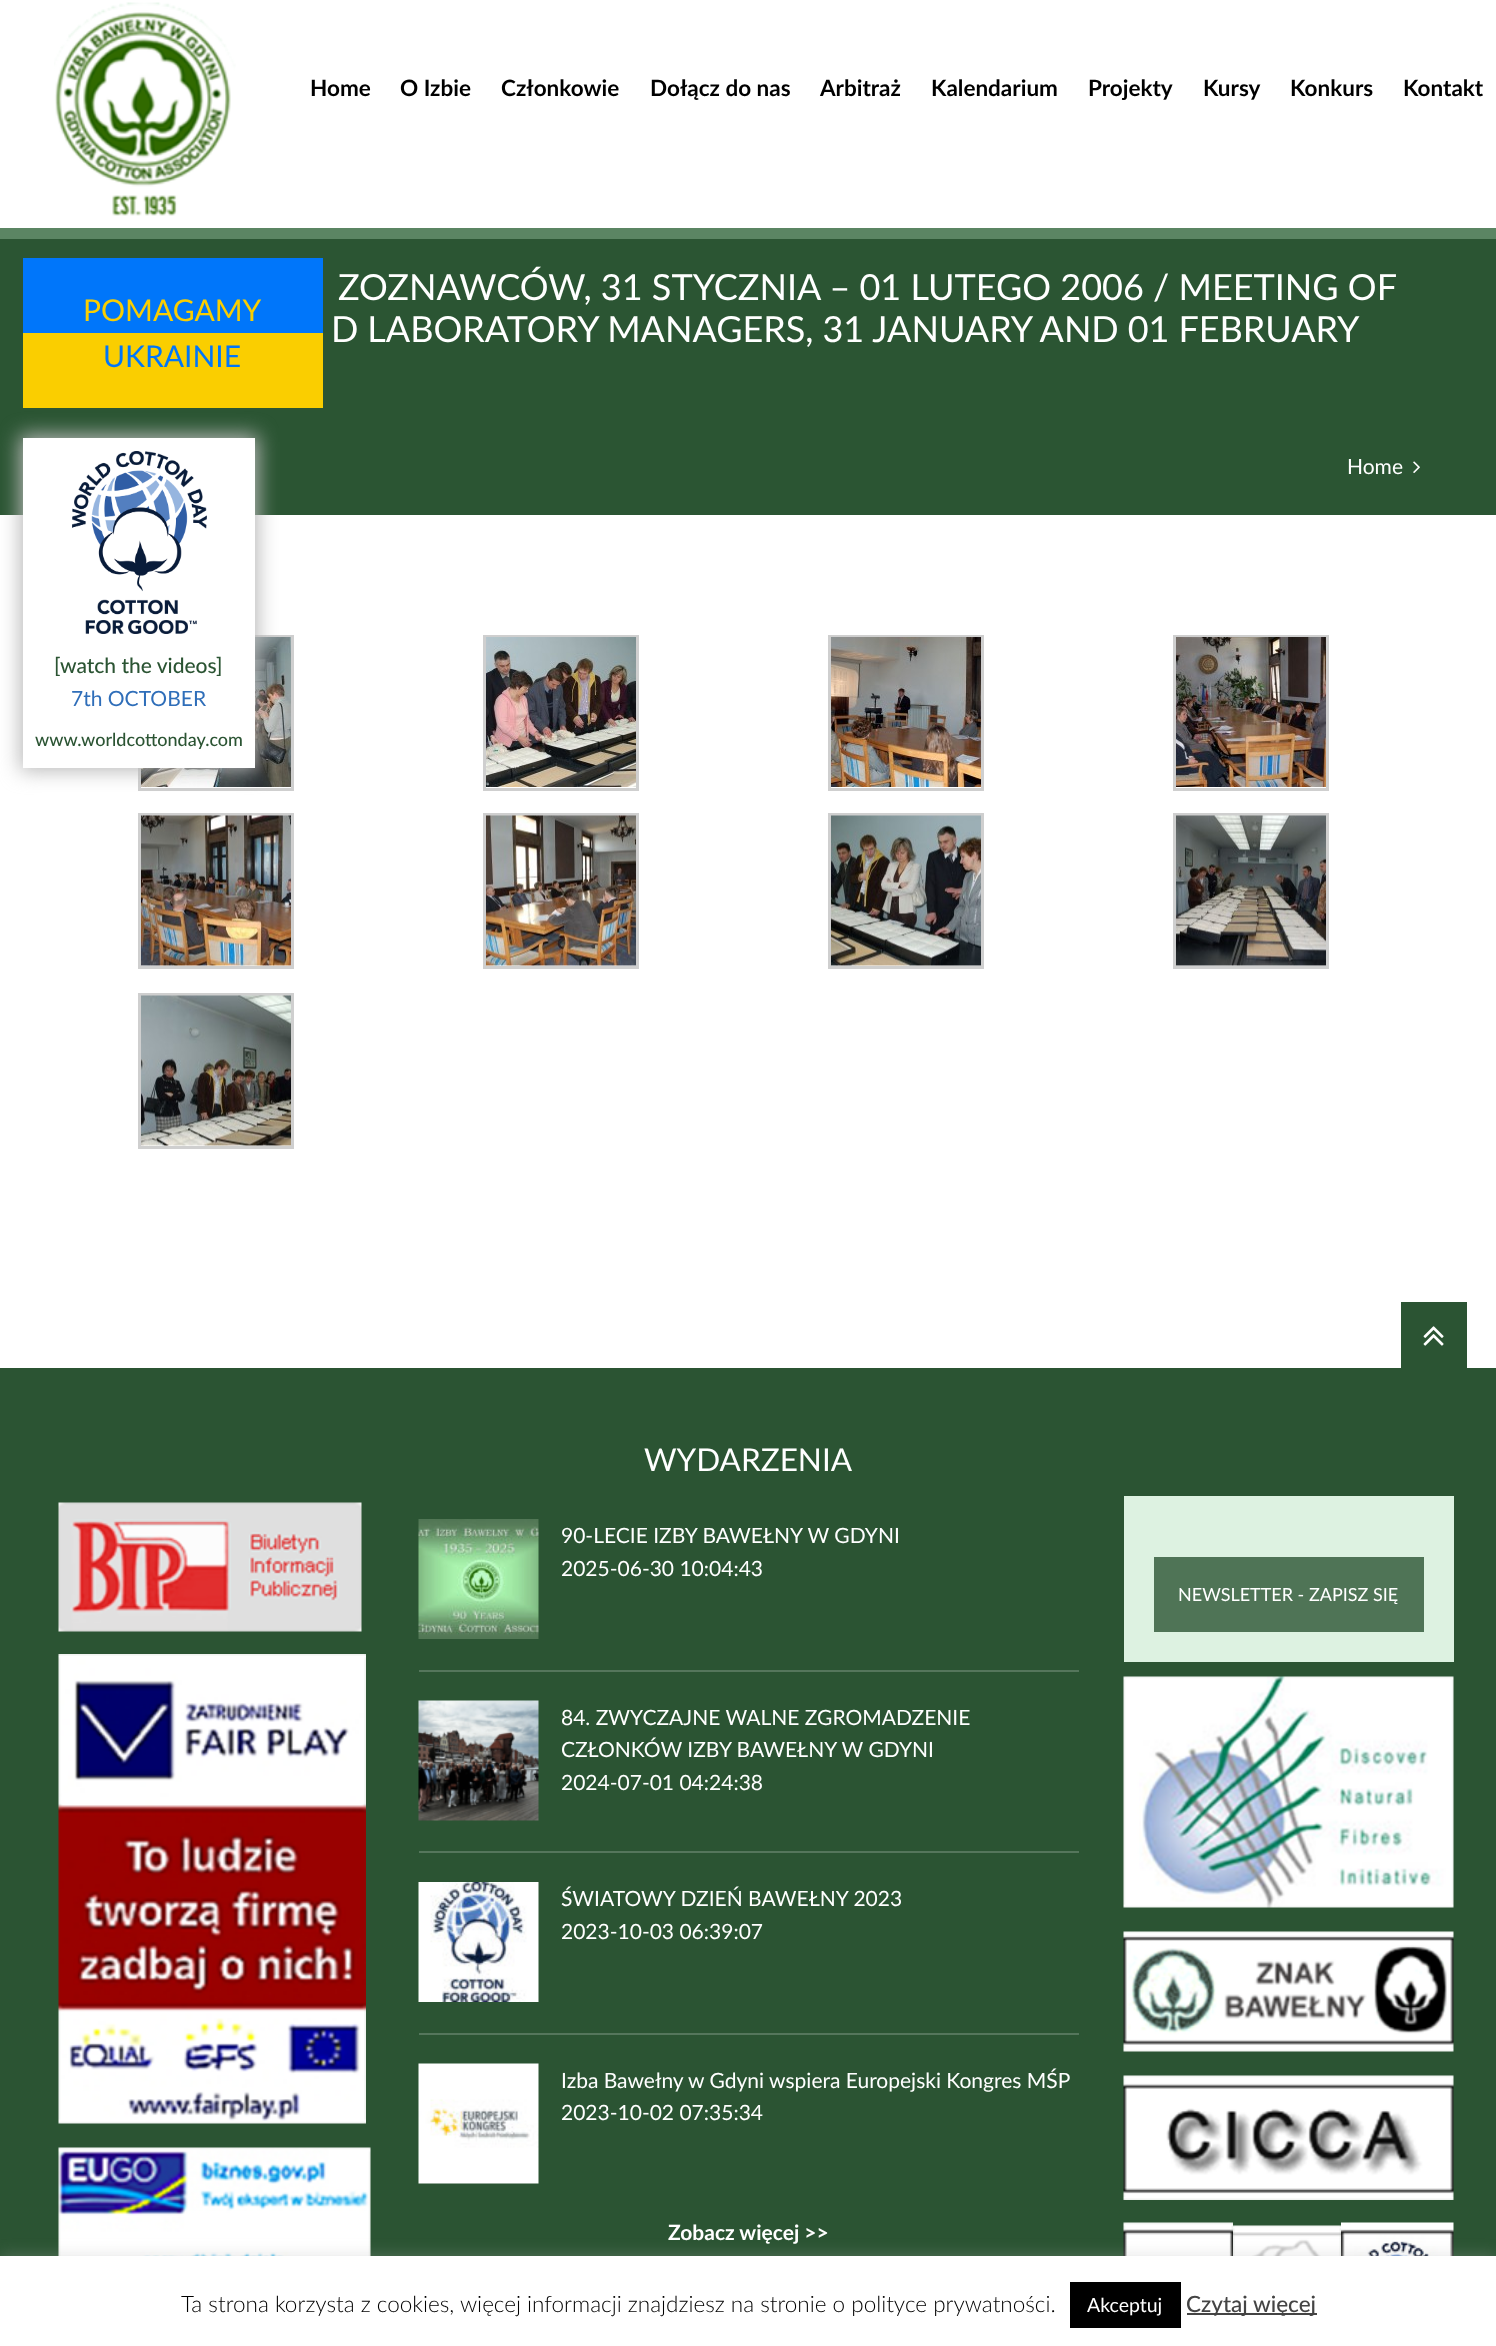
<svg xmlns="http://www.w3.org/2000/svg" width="1496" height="2346">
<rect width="100%" height="100%" fill="#fff"/>
<image x="54" y="2" width="182" height="214" href="media/1.png"/>
<text x="310" y="96" style="font-family:Lato;font-size:22.5px;font-weight:bold;fill:#000">Home</text>
<text x="400" y="96" style="font-family:Lato;font-size:22.5px;font-weight:bold;fill:#000">O Izbie</text>
<text x="501" y="96" style="font-family:Lato;font-size:22.5px;font-weight:bold;fill:#000">Członkowie</text>
<text x="650" y="96" style="font-family:Lato;font-size:22.5px;font-weight:bold;fill:#000">Dołącz do nas</text>
<text x="820" y="96" style="font-family:Lato;font-size:22.5px;font-weight:bold;fill:#000">Arbitraż</text>
<text x="931" y="96" style="font-family:Lato;font-size:22.5px;font-weight:bold;fill:#000">Kalendarium</text>
<text x="1088" y="96" style="font-family:Lato;font-size:22.5px;font-weight:bold;fill:#000">Projekty</text>
<text x="1203" y="96" style="font-family:Lato;font-size:22.5px;font-weight:bold;fill:#000">Kursy</text>
<text x="1290" y="96" style="font-family:Lato;font-size:22.5px;font-weight:bold;fill:#000">Konkurs</text>
<text x="1403" y="96" style="font-family:Lato;font-size:22.5px;font-weight:bold;fill:#000">Kontakt</text>
<rect y="239" width="1496" height="276" fill="#2b5533"/>
<rect x="23" y="258" width="300" height="75" fill="#0076fa"/>
<text x="83" y="321" style="font-family:Lato;font-size:30px;fill:#face00">POMAGAMY</text>
<rect x="139.5" y="636.5" width="153" height="153" fill="none" stroke="#cfcfcf" stroke-width="3"/>
<image x="141" y="637" width="150" height="150" href="media/4.png"/>
<rect x="20" y="435" width="238" height="336" fill="#b9b9b9" filter="blur(10px)"/>
<rect x="23" y="333" width="300" height="75" fill="#face00"/>
<text x="103" y="367" style="font-family:Lato;font-size:30px;fill:#0076fa">UKRAINIE</text>
<rect x="23" y="438" width="232" height="330" fill="#fff"/>
<image x="72" y="451" width="135" height="183" href="media/2.png"/>
<text x="54" y="673" style="font-family:Lato;font-size:21px;font-weight:500;fill:#2b5433">[watch the videos]</text>
<text x="71" y="706" style="font-family:Lato;font-size:21px;fill:#2f6eb9">7th OCTOBER</text>
<text x="35" y="746" style="font-family:Lato;font-size:18px;font-weight:500;fill:#2b5433">www.worldcottonday.com</text>
<rect y="228" width="1496" height="11" fill="#5b8563"/>
<text x="338" y="300" style="font-family:Lato;font-size:36px;fill:#fff">ZOZNAWCÓW, 31 STYCZNIA – 01 LUTEGO 2006</text>
<text x="1153" y="300" style="font-family:Lato;font-size:36px;fill:#fff">/ MEETING OF</text>
<text x="331" y="342" word-spacing="-0.25" style="font-family:Lato;font-size:36px;fill:#fff">D LABORATORY MANAGERS, 31 JANUARY AND 01 FEBRUARY</text>
<text x="1347" y="474" style="font-family:Lato;font-size:21px;fill:#fff">Home</text>
<image x="1413" y="461" width="7" height="12" href="media/3.png"/>
<rect x="484.5" y="636.5" width="153" height="153" fill="none" stroke="#cfcfcf" stroke-width="3"/>
<image x="486" y="637" width="150" height="150" href="media/5.png"/>
<rect x="829.5" y="636.5" width="153" height="153" fill="none" stroke="#cfcfcf" stroke-width="3"/>
<image x="831" y="637" width="150" height="150" href="media/6.png"/>
<rect x="1174.5" y="636.5" width="153" height="153" fill="none" stroke="#cfcfcf" stroke-width="3"/>
<image x="1176" y="637" width="150" height="150" href="media/7.png"/>
<rect x="139.5" y="814.5" width="153" height="153" fill="none" stroke="#cfcfcf" stroke-width="3"/>
<image x="141" y="815" width="150" height="151" href="media/8.png"/>
<rect x="484.5" y="814.5" width="153" height="153" fill="none" stroke="#cfcfcf" stroke-width="3"/>
<image x="486" y="815" width="150" height="151" href="media/9.png"/>
<rect x="829.5" y="814.5" width="153" height="153" fill="none" stroke="#cfcfcf" stroke-width="3"/>
<image x="831" y="815" width="150" height="151" href="media/10.png"/>
<rect x="1174.5" y="814.5" width="153" height="153" fill="none" stroke="#cfcfcf" stroke-width="3"/>
<image x="1176" y="815" width="150" height="151" href="media/11.png"/>
<rect x="139.5" y="994.5" width="153" height="153" fill="none" stroke="#cfcfcf" stroke-width="3"/>
<image x="141" y="995" width="150" height="151" href="media/12.png"/>
<rect y="1368" width="1496" height="888" fill="#2b5433"/>
<rect x="1401" y="1302" width="66" height="66" fill="#2b5433"/>
<image x="1423" y="1326" width="21" height="20" href="media/13.png"/>
<image x="58" y="1502" width="304" height="130" href="media/14.png"/>
<image x="58" y="1654" width="308" height="470" href="media/15.png"/>
<image x="58" y="2147" width="313" height="109" href="media/16.png"/>
<text x="644" y="1471" style="font-family:Lato;font-size:31.5px;fill:#fff">WYDARZENIA</text>
<image x="418" y="1519" width="121" height="120" href="media/17.png"/>
<text x="561" y="1543" style="font-family:Lato;font-size:21px;fill:#fff">90-LECIE IZBY BAWEŁNY W GDYNI</text>
<text x="561" y="1576" style="font-family:Lato;font-size:21px;fill:#fff">2025-06-30 10:04:43</text>
<rect x="419" y="1670" width="660" height="2" fill="#55765c"/>
<image x="418" y="1700" width="121" height="121" href="media/18.png"/>
<text x="561" y="1725" style="font-family:Lato;font-size:21px;fill:#fff">84. ZWYCZAJNE WALNE ZGROMADZENIE</text>
<text x="561" y="1757" style="font-family:Lato;font-size:21px;fill:#fff">CZŁONKÓW IZBY BAWEŁNY W GDYNI</text>
<text x="561" y="1790" style="font-family:Lato;font-size:21px;fill:#fff">2024-07-01 04:24:38</text>
<rect x="419" y="1851" width="660" height="2" fill="#55765c"/>
<image x="418" y="1882" width="121" height="120" href="media/19.png"/>
<text x="561" y="1906" style="font-family:Lato;font-size:21px;fill:#fff">ŚWIATOWY DZIEŃ BAWEŁNY 2023</text>
<text x="561" y="1939" style="font-family:Lato;font-size:21px;fill:#fff">2023-10-03 06:39:07</text>
<rect x="419" y="2033" width="660" height="2" fill="#55765c"/>
<image x="418" y="2063" width="121" height="121" href="media/20.png"/>
<text x="561" y="2088" style="font-family:Lato;font-size:21px;fill:#fff">Izba Bawełny w Gdyni wspiera Europejski Kongres MŚP</text>
<text x="561" y="2120" style="font-family:Lato;font-size:21px;fill:#fff">2023-10-02 07:35:34</text>
<text x="668" y="2240" style="font-family:Lato;font-size:21px;font-weight:bold;fill:#fff">Zobacz więcej &gt;&gt;</text>
<rect x="1124" y="1496" width="330" height="166" fill="#ddf2e1"/>
<rect x="1154" y="1557" width="270" height="75" fill="#4f7456"/>
<text x="1178" y="1601" style="font-family:Lato;font-size:18px;fill:#fff">NEWSLETTER - ZAPISZ SIĘ</text>
<image x="1123" y="1676" width="331" height="232" href="media/21.png"/>
<image x="1123" y="1931" width="331" height="121" href="media/22.png"/>
<image x="1123" y="2075" width="331" height="125" href="media/23.png"/>
<image x="1123" y="2222" width="110" height="34" href="media/24.png"/>
<image x="1233" y="2225" width="108" height="31" href="media/25.png"/>
<image x="1341" y="2222" width="113" height="34" href="media/26.png"/>
<rect y="2255" width="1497" height="90" fill="#acabab4d" filter="blur(7.5px)"/>
<rect y="2256" width="1496" height="90" fill="#fff"/>
<text x="181" y="2312" style="font-family:Lato;font-size:22.5px;font-weight:300;fill:#000">Ta strona korzysta z cookies, więcej informacji znajdziesz na stronie o polityce prywatności.</text>
<rect x="1070" y="2282" width="111" height="46" fill="#000"/>
<text x="1087" y="2312" style="font-family:Lato;font-size:19.5px;fill:#fff">Akceptuj</text>
<rect x="1187" y="2313" width="130" height="2" fill="#444"/>
<text x="1186" y="2312" style="font-family:Lato;font-size:22.5px;font-weight:500;fill:#444">Czytaj więcej</text>
</svg>
